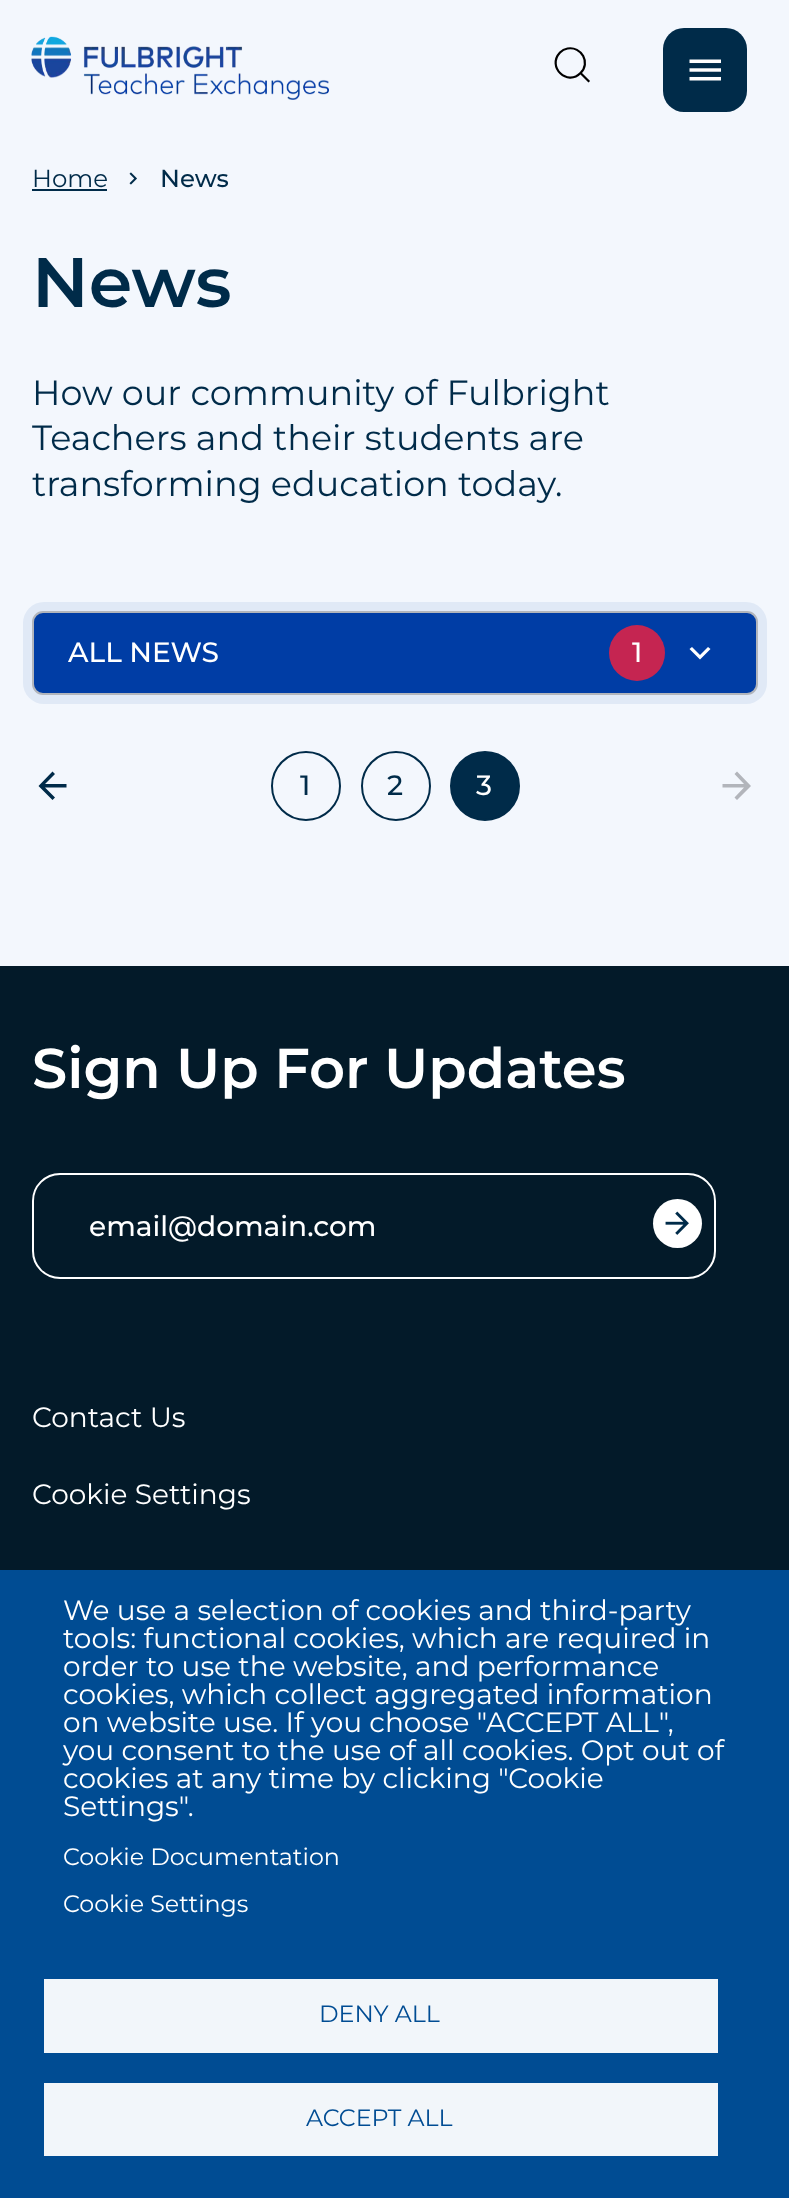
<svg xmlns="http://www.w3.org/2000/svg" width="789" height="2198">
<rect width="100%" height="100%" fill="#f3f7fd"/>
<image x="31" y="36" width="298" height="64" href="media/1.png"/>
<path d="M588.5 81l-8-8m0 0c10.5-10 1-27-13-24.5c-2.5 .5-5.5 2-7.5 4c-13.5 14.5 7.5 34 20.5 20.5z" fill="none" stroke="#000" stroke-width="2.2" stroke-linecap="square"/>
<rect x="663" y="28" width="84" height="84" rx="21" fill="#002b49"/>
<image x="689" y="59" width="32" height="22" href="media/2.png"/>
<text x="32" y="187" style="font-family:Montserrat;font-size:24.5px;fill:#002b49">Home</text>
<rect x="32" y="189" width="75" height="2" fill="#002b49"/>
<image x="129" y="172" width="8" height="13" href="media/3.png"/>
<text x="160" y="187" style="font-family:Montserrat;font-size:24.5px;font-weight:500;fill:#002b49">News</text>
<text x="32" y="307" style="font-family:Montserrat;font-size:70px;font-weight:600;fill:#002b49">News</text>
<text x="32" y="405" style="font-family:Montserrat;font-size:35px;fill:#002b49">How our community of Fulbright</text>
<text x="32" y="450" style="font-family:Montserrat;font-size:35px;fill:#002b49">Teachers and their students are</text>
<text x="32" y="496" style="font-family:Montserrat;font-size:35px;fill:#002b49">transforming education today.</text>
<rect x="23" y="602" width="744" height="102" rx="21" fill="#e0e9f6"/>
<rect x="33" y="612" width="724" height="82" rx="10" fill="#003da5" stroke="#b2b5bb" stroke-width="2"/>
<text x="68" y="662" style="font-family:Montserrat;font-size:28px;font-weight:500;fill:#fff">ALL NEWS</text>
<circle cx="637" cy="653" r="28" fill="#c52551"/>
<text x="632" y="662" style="font-family:Montserrat;font-size:28px;font-weight:500;fill:#fff">1</text>
<path d="M692 647l8 8l8-8l2.5 2l-10.5 10.5l-10.5-10.5z" fill="#fff"/>
<path d="M66.5 784h-21.5l10-10l-2.5-2.5l-14 14.5l14 14l2.5-2.5l-10-10h21.5z" fill="#002b49"/>
<circle cx="306" cy="786" r="34" fill="none" stroke="#002b49" stroke-width="2"/>
<text x="300" y="795" style="font-family:Montserrat;font-size:28px;font-weight:500;fill:#002b49">1</text>
<circle cx="396" cy="786" r="34" fill="none" stroke="#002b49" stroke-width="2"/>
<text x="387" y="795" style="font-family:Montserrat;font-size:28px;font-weight:500;fill:#002b49">2</text>
<circle cx="485" cy="786" r="34" fill="#002b49" stroke="#002b49" stroke-width="2"/>
<text x="476" y="795" style="font-family:Montserrat;font-size:28px;font-weight:500;fill:#fff">3</text>
<path d="M737 771.5l-2.5 2.5l9.5 10h-21.5v3.5h21.5l-9.5 10l2.5 2.5l14-14z" fill="#b2b5bb"/>
<rect y="1570" width="789" height="628" fill="#004c93"/>
<text x="63" y="1620" style="font-family:Montserrat;font-size:28px;fill:#fff">We use a selection of cookies and third-party</text>
<text x="63" y="1648" style="font-family:Montserrat;font-size:28px;fill:#fff">tools: functional cookies, which are required in</text>
<text x="63" y="1676" style="font-family:Montserrat;font-size:28px;fill:#fff">order to use the website, and performance</text>
<text x="63" y="1704" style="font-family:Montserrat;font-size:28px;fill:#fff">cookies, which collect aggregated information</text>
<text x="63" y="1732" style="font-family:Montserrat;font-size:28px;fill:#fff">on website use. If you choose "ACCEPT ALL",</text>
<text x="63" y="1760" style="font-family:Montserrat;font-size:28px;fill:#fff">you consent to the use of all cookies. Opt out of</text>
<text x="63" y="1788" style="font-family:Montserrat;font-size:28px;fill:#fff">cookies at any time by clicking "Cookie</text>
<text x="63" y="1816" style="font-family:Montserrat;font-size:28px;fill:#fff">Settings".</text>
<text x="63" y="1865" style="font-family:Montserrat;font-size:23.75px;fill:#fff">Cookie Documentation</text>
<text x="63" y="1912" style="font-family:Montserrat;font-size:23.75px;fill:#fff">Cookie Settings</text>
<rect x="44" y="1979" width="674" height="74" fill="#f2f6fa"/>
<text x="319" y="2022" style="font-family:Montserrat;font-size:23.75px;fill:#004c93">DENY ALL</text>
<rect x="44" y="2083" width="674" height="73" fill="#f2f6fa"/>
<text x="306" y="2126" style="font-family:Montserrat;font-size:23.75px;fill:#004c93">ACCEPT ALL</text>
<rect y="966" width="789" height="604" fill="#031a29"/>
<text x="32" y="1088" style="font-family:Montserrat;font-size:56px;font-weight:600;fill:#fff">Sign Up For Updates</text>
<rect x="33" y="1174" width="682" height="104" rx="27" fill="none" stroke="#fff" stroke-width="2"/>
<text x="89" y="1236" style="font-family:Montserrat;font-size:28px;font-weight:500;fill:#fff">email@domain.com</text>
<circle cx="677.5" cy="1223.5" r="24.5" fill="#fff"/>
<image x="665" y="1211" width="24" height="24" href="media/4.png"/>
<text x="32" y="1427" style="font-family:Montserrat;font-size:28px;fill:#fff">Contact Us</text>
<text x="32" y="1504" style="font-family:Montserrat;font-size:28px;fill:#fff">Cookie Settings</text>
</svg>
